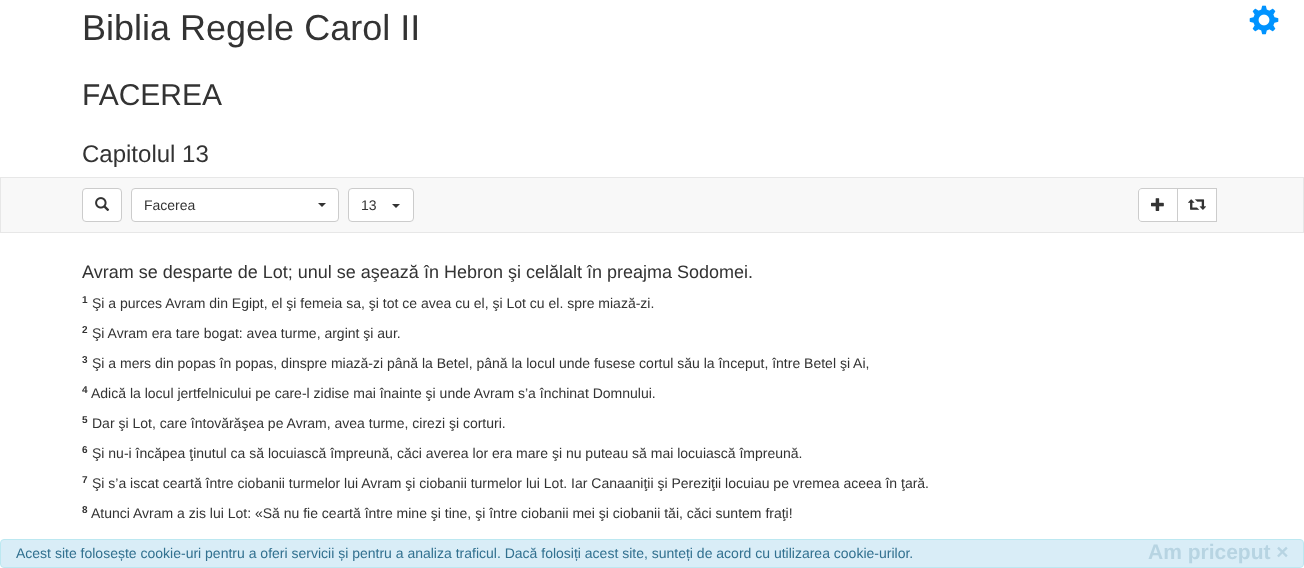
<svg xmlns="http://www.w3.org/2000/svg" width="1304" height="568">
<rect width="100%" height="100%" fill="#fff"/>
<text x="82" y="40" style="font-family:Liberation Sans;font-size:36px;fill:#333">Biblia Regele Carol II</text>
<text x="82" y="105" style="font-family:Liberation Sans;font-size:30px;fill:#333">FACEREA</text>
<text x="82" y="162" style="font-family:Liberation Sans;font-size:24px;fill:#333">Capitolul 13</text>
<image x="1249" y="5" width="30" height="30" href="media/1.png"/>
<rect x="0.5" y="177.5" width="1303" height="55" fill="#f8f8f8" stroke="#e7e7e7"/>
<rect x="82.5" y="188.5" width="39" height="33" rx="3.5" fill="#fff" stroke="#ccc"/>
<image x="95" y="197" width="15" height="14" href="media/2.png"/>
<rect x="131.5" y="188.5" width="207" height="33" rx="3.5" fill="#fff" stroke="#ccc"/>
<text x="144" y="210" style="font-family:Liberation Sans;font-size:14px;fill:#333">Facerea</text>
<path d="M318 203h8l-4 4z" fill="#333"/>
<rect x="348.5" y="188.5" width="65" height="33" rx="3.5" fill="#fff" stroke="#ccc"/>
<text x="361" y="210" style="font-family:Liberation Sans;font-size:14px;fill:#333">13</text>
<path d="M392 204h8l-4 4z" fill="#333"/>
<path d="M1142 188.5h35.5v33h-35.5c-2 0-3.5-1.5-3.5-3.5v-26c0-2 1.5-3.5 3.5-3.5z" fill="#fff" stroke="#ccc"/>
<image x="1151" y="198" width="13" height="13" href="media/3.png"/>
<rect x="1177.5" y="188.5" width="39" height="33" fill="#fff" stroke="#ccc"/>
<image x="1188" y="199" width="18" height="11" href="media/4.png"/>
<text x="82" y="278" style="font-family:Liberation Sans;font-size:18px;fill:#333">Avram se desparte de Lot; unul se aşează în Hebron şi celălalt în preajma Sodomei.</text>
<text x="82" y="303" style="font-family:Liberation Sans;font-size:10px;font-weight:bold;fill:#333">1</text>
<text x="92" y="308" style="font-family:Liberation Sans;font-size:14px;fill:#333">Şi a purces Avram din Egipt, el şi femeia sa, şi tot ce avea cu el, şi Lot cu el. spre miază-zi.</text>
<text x="82" y="333" style="font-family:Liberation Sans;font-size:10px;font-weight:bold;fill:#333">2</text>
<text x="92" y="338" style="font-family:Liberation Sans;font-size:14px;fill:#333">Şi Avram era tare bogat: avea turme, argint şi aur.</text>
<text x="82" y="363" style="font-family:Liberation Sans;font-size:10px;font-weight:bold;fill:#333">3</text>
<text x="92" y="368" style="font-family:Liberation Sans;font-size:14px;fill:#333">Şi a mers din popas în popas, dinspre miază-zi până la Betel, până la locul unde fusese cortul său la început, între Betel şi Ai,</text>
<text x="82" y="393" style="font-family:Liberation Sans;font-size:10px;font-weight:bold;fill:#333">4</text>
<text x="91" y="398" style="font-family:Liberation Sans;font-size:14px;fill:#333">Adică la locul jertfelnicului pe care-l zidise mai înainte şi unde Avram s’a închinat Domnului.</text>
<text x="82" y="423" style="font-family:Liberation Sans;font-size:10px;font-weight:bold;fill:#333">5</text>
<text x="92" y="428" style="font-family:Liberation Sans;font-size:14px;fill:#333">Dar şi Lot, care întovărăşea pe Avram, avea turme, cirezi şi corturi.</text>
<text x="82" y="453" style="font-family:Liberation Sans;font-size:10px;font-weight:bold;fill:#333">6</text>
<text x="92" y="458" style="font-family:Liberation Sans;font-size:14px;fill:#333">Şi nu-i încăpea ţinutul ca să locuiască împreună, căci averea lor era mare şi nu puteau să mai locuiască împreună.</text>
<text x="82" y="483" style="font-family:Liberation Sans;font-size:10px;font-weight:bold;fill:#333">7</text>
<text x="92" y="488" style="font-family:Liberation Sans;font-size:14px;fill:#333">Şi s’a iscat ceartă între ciobanii turmelor lui Avram şi ciobanii turmelor lui Lot. Iar Canaaniţii şi Pereziţii locuiau pe vremea aceea în ţară.</text>
<text x="82" y="513" style="font-family:Liberation Sans;font-size:10px;font-weight:bold;fill:#333">8</text>
<text x="91" y="518" style="font-family:Liberation Sans;font-size:14px;fill:#333">Atunci Avram a zis lui Lot: «Să nu fie ceartă între mine şi tine, şi între ciobanii mei şi ciobanii tăi, căci suntem fraţi!</text>
<rect x="0.5" y="539.5" width="1303" height="28" rx="3.5" fill="#d9edf7" stroke="#bce8f1"/>
<text x="16" y="558" style="font-family:Liberation Sans;font-size:14px;fill:#31708f">Acest site folosește cookie-uri pentru a oferi servicii și pentru a analiza traficul. Dacă folosiți acest site, sunteți de acord cu utilizarea cookie-urilor.</text>
<text x="1148" y="559" style="font-family:Liberation Sans;font-size:21px;font-weight:bold;fill:#b7d4e2">Am priceput ×</text>
</svg>
